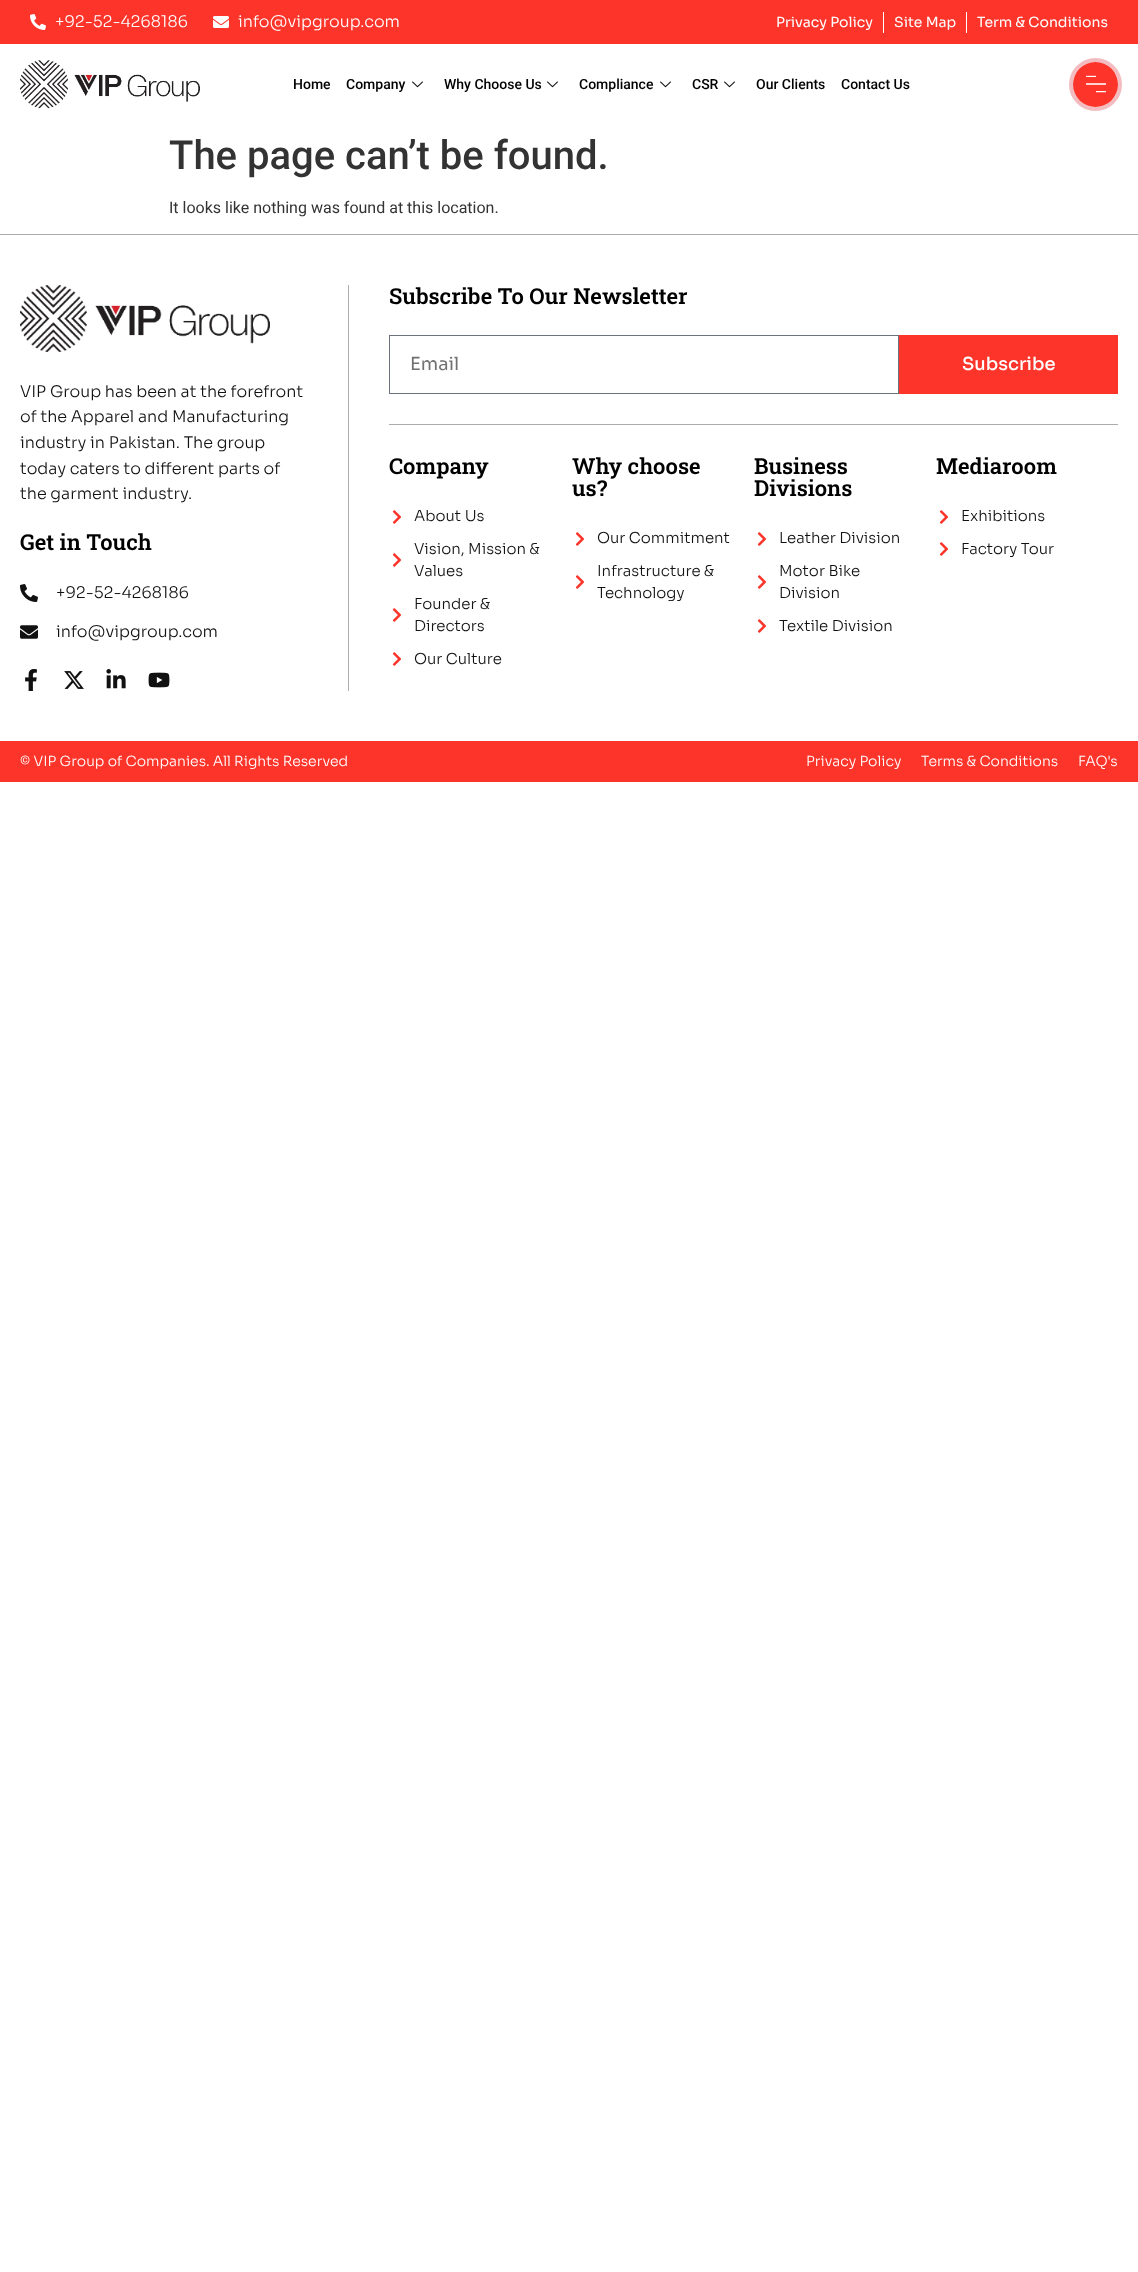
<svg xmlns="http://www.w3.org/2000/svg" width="1138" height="2272">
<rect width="100%" height="100%" fill="#fff"/>
<rect width="1138" height="44" fill="#fc342a"/>
<image x="30" y="14" width="16" height="16" href="media/1.png"/>
<text x="55" y="27" style="font-family:Sora;font-size:16px;font-weight:300;fill:#fff">+92-52-4268186</text>
<image x="213" y="16" width="16" height="12" href="media/2.png"/>
<text x="238" y="27" style="font-family:Sora;font-size:16px;font-weight:300;fill:#fff">info@vipgroup.com</text>
<text x="776" y="27" style="font-family:Sora;font-size:14px;fill:#fff">Privacy Policy</text>
<rect x="883" y="12" width="1" height="21" fill="#fff"/>
<text x="894" y="27" style="font-family:Sora;font-size:14px;fill:#fff">Site Map</text>
<rect x="966" y="12" width="1" height="21" fill="#fff"/>
<text x="977" y="27" style="font-family:Sora;font-size:14px;fill:#fff">Term &amp; Conditions</text>
<image x="20" y="60" width="180" height="49" href="media/3.png"/>
<text x="293" y="89" style="font-family:Roboto;font-size:14px;font-weight:500;fill:#000">Home</text>
<text x="346" y="89" style="font-family:Roboto;font-size:14px;font-weight:500;fill:#000">Company</text>
<image x="412" y="81" width="11" height="7" href="media/4.png"/>
<text x="444" y="89" style="font-family:Roboto;font-size:14px;font-weight:500;fill:#000">Why Choose Us</text>
<image x="547" y="81" width="11" height="7" href="media/4.png"/>
<text x="579" y="89" style="font-family:Roboto;font-size:14px;font-weight:500;fill:#000">Compliance</text>
<image x="660" y="81" width="11" height="7" href="media/4.png"/>
<text x="692" y="89" style="font-family:Roboto;font-size:14px;font-weight:500;fill:#000">CSR</text>
<image x="724" y="81" width="11" height="7" href="media/4.png"/>
<text x="756" y="89" style="font-family:Roboto;font-size:14px;font-weight:500;fill:#000">Our Clients</text>
<text x="841" y="89" style="font-family:Roboto;font-size:14px;font-weight:500;fill:#000">Contact Us</text>
<circle cx="1095.5" cy="84.5" r="24.5" fill="none" stroke="#f3bcc1" stroke-width="4"/>
<circle cx="1095.5" cy="84.5" r="22.5" fill="#fc342a"/>
<image x="1086" y="75" width="20" height="18" href="media/5.png"/>
<text x="169" y="169" style="font-family:Roboto;font-size:40px;font-weight:500;fill:#333">The page can’t be found.</text>
<text x="169" y="213" style="font-family:Roboto;font-size:16px;fill:#333">It looks like nothing was found at this location.</text>
<rect y="234" width="1138" height="1" fill="#acacac"/>
<rect x="348" y="285" width="1" height="406" fill="#acacac"/>
<image x="20" y="285" width="250" height="67" href="media/6.png"/>
<text x="20" y="397" style="font-family:Sora;font-size:16px;font-weight:300;fill:#111">VIP Group has been at the forefront</text>
<text x="20" y="422" style="font-family:Sora;font-size:16px;font-weight:300;fill:#111">of the Apparel and Manufacturing</text>
<text x="20" y="448" style="font-family:Sora;font-size:16px;font-weight:300;fill:#111">industry in Pakistan. The group</text>
<text x="20" y="474" style="font-family:Sora;font-size:16px;font-weight:300;fill:#111">today caters to different parts of</text>
<text x="20" y="499" style="font-family:Sora;font-size:16px;font-weight:300;fill:#111">the garment industry.</text>
<text x="20" y="550" style="font-family:Roboto Slab;font-size:22px;font-weight:600;fill:#000">Get in Touch</text>
<image x="20" y="584" width="18" height="18" href="media/7.png"/>
<text x="56" y="598" style="font-family:Sora;font-size:16px;font-weight:300;fill:#111">+92-52-4268186</text>
<image x="20" y="625" width="18" height="14" href="media/8.png"/>
<text x="56" y="637" style="font-family:Sora;font-size:16px;font-weight:300;fill:#111">info@vipgroup.com</text>
<image x="25" y="669" width="12" height="22" href="media/9.png"/>
<image x="64" y="671" width="20" height="18" href="media/10.png"/>
<image x="106" y="669" width="20" height="20" href="media/11.png"/>
<image x="148" y="672" width="22" height="16" href="media/12.png"/>
<text x="389" y="304" style="font-family:Roboto Slab;font-size:22px;font-weight:600;fill:#000">Subscribe To Our Newsletter</text>
<rect x="389.5" y="335.5" width="509" height="58" fill="none" stroke="#69727d"/>
<text x="410" y="370" style="font-family:Sora;font-size:18px;fill:#707070">Email</text>
<rect x="899" y="335" width="219" height="59" fill="#fc342a"/>
<text x="962" y="370" style="font-family:Sora;font-size:18px;font-weight:500;fill:#fff">Subscribe</text>
<rect x="389" y="424" width="729" height="1" fill="#acacac"/>
<text x="389" y="474" style="font-family:Roboto Slab;font-size:22px;font-weight:600;fill:#000">Company</text>
<image x="392" y="510" width="10" height="14" href="media/13.png"/>
<text x="414" y="521" style="font-family:Sora;font-size:15px;font-weight:300;fill:#111">About Us</text>
<image x="392" y="553" width="10" height="14" href="media/13.png"/>
<text x="414" y="554" style="font-family:Sora;font-size:15px;font-weight:300;fill:#111">Vision, Mission &amp;</text>
<text x="414" y="576" style="font-family:Sora;font-size:15px;font-weight:300;fill:#111">Values</text>
<image x="392" y="608" width="10" height="14" href="media/13.png"/>
<text x="414" y="609" style="font-family:Sora;font-size:15px;font-weight:300;fill:#111">Founder &amp;</text>
<text x="414" y="631" style="font-family:Sora;font-size:15px;font-weight:300;fill:#111">Directors</text>
<image x="392" y="652" width="10" height="14" href="media/13.png"/>
<text x="414" y="664" style="font-family:Sora;font-size:15px;font-weight:300;fill:#111">Our Culture</text>
<text x="572" y="474" style="font-family:Roboto Slab;font-size:22px;font-weight:600;fill:#000">Why choose</text>
<text x="572" y="496" style="font-family:Roboto Slab;font-size:22px;font-weight:600;fill:#000">us?</text>
<image x="575" y="532" width="10" height="14" href="media/13.png"/>
<text x="597" y="543" style="font-family:Sora;font-size:15px;font-weight:300;fill:#111">Our Commitment</text>
<image x="575" y="575" width="10" height="14" href="media/13.png"/>
<text x="597" y="576" style="font-family:Sora;font-size:15px;font-weight:300;fill:#111">Infrastructure &amp;</text>
<text x="597" y="598" style="font-family:Sora;font-size:15px;font-weight:300;fill:#111">Technology</text>
<text x="754" y="474" style="font-family:Roboto Slab;font-size:22px;font-weight:600;fill:#000">Business</text>
<text x="754" y="496" style="font-family:Roboto Slab;font-size:22px;font-weight:600;fill:#000">Divisions</text>
<image x="757" y="532" width="10" height="14" href="media/13.png"/>
<text x="779" y="543" style="font-family:Sora;font-size:15px;font-weight:300;fill:#111">Leather Division</text>
<image x="757" y="575" width="10" height="14" href="media/13.png"/>
<text x="779" y="576" style="font-family:Sora;font-size:15px;font-weight:300;fill:#111">Motor Bike</text>
<text x="779" y="598" style="font-family:Sora;font-size:15px;font-weight:300;fill:#111">Division</text>
<image x="757" y="619" width="10" height="14" href="media/13.png"/>
<text x="779" y="631" style="font-family:Sora;font-size:15px;font-weight:300;fill:#111">Textile Division</text>
<text x="936" y="474" style="font-family:Roboto Slab;font-size:22px;font-weight:600;fill:#000">Mediaroom</text>
<image x="939" y="510" width="10" height="14" href="media/13.png"/>
<text x="961" y="521" style="font-family:Sora;font-size:15px;font-weight:300;fill:#111">Exhibitions</text>
<image x="939" y="542" width="10" height="14" href="media/13.png"/>
<text x="961" y="554" style="font-family:Sora;font-size:15px;font-weight:300;fill:#111">Factory Tour</text>
<rect y="741" width="1138" height="41" fill="#fc342a"/>
<text x="20" y="766" style="font-family:Sora;font-size:14px;font-weight:300;fill:#fff">© VIP Group of Companies. All Rights Reserved</text>
<text x="806" y="766" style="font-family:Sora;font-size:14px;font-weight:300;fill:#fff">Privacy Policy</text>
<text x="921" y="766" style="font-family:Sora;font-size:14px;font-weight:300;fill:#fff">Terms &amp; Conditions</text>
<text x="1078" y="766" style="font-family:Sora;font-size:14px;font-weight:300;fill:#fff">FAQ's</text>
</svg>
